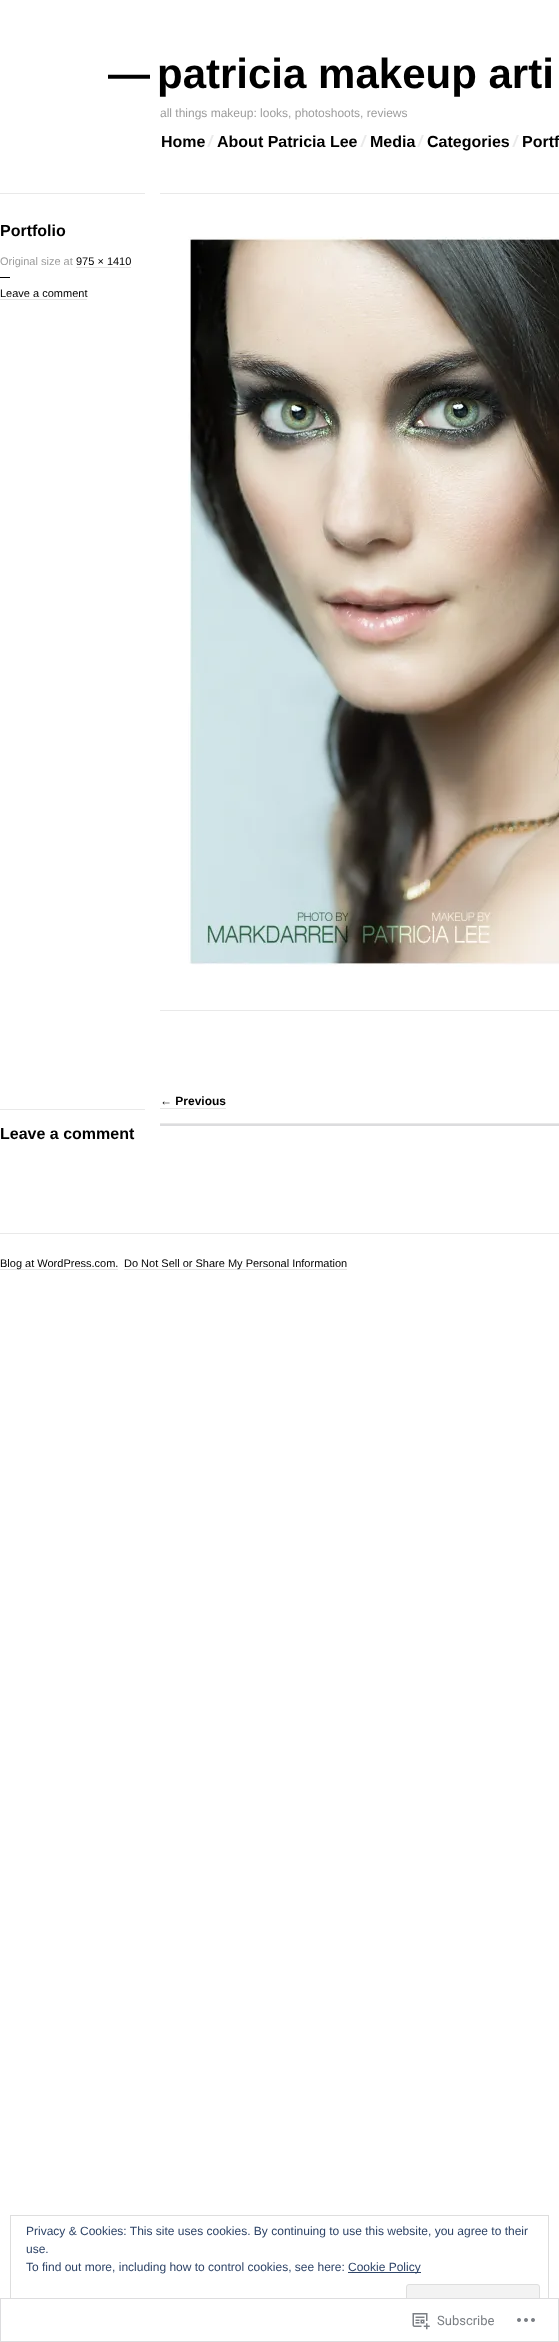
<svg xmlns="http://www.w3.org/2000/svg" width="559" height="2342">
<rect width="100%" height="100%" fill="#fff"/>
<text x="108" y="88" style="font-family:Liberation Sans;font-size:42px;font-weight:bold;fill:#000">—</text>
<text x="157" y="88" style="font-family:Liberation Sans;font-size:42px;font-weight:bold;fill:#000">patricia makeup arti</text>
<text x="160" y="117" style="font-family:Liberation Sans;font-size:12px;fill:#9d9d9d">all things makeup: looks, photoshoots, reviews</text>
<image x="207" y="135" width="7" height="12" href="media/1.png"/>
<text x="161" y="147" style="font-family:Liberation Sans;font-size:16px;font-weight:bold;fill:#000">Home</text>
<image x="360" y="135" width="7" height="12" href="media/1.png"/>
<text x="217" y="147" style="font-family:Liberation Sans;font-size:16px;font-weight:bold;fill:#000">About Patricia Lee</text>
<image x="417" y="135" width="7" height="12" href="media/1.png"/>
<text x="370" y="147" style="font-family:Liberation Sans;font-size:16px;font-weight:bold;fill:#000">Media</text>
<image x="512" y="135" width="7" height="12" href="media/1.png"/>
<text x="427" y="147" style="font-family:Liberation Sans;font-size:16px;font-weight:bold;fill:#000">Categories</text>
<text x="522" y="147" style="font-family:Liberation Sans;font-size:16px;font-weight:bold;fill:#000">Portf</text>
<rect y="193" width="145" height="1" fill="#e9e9e9"/>
<text x="0" y="236" style="font-family:Liberation Sans;font-size:16px;font-weight:bold;fill:#000">Portfolio</text>
<text x="0" y="265" style="font-family:Liberation Sans;font-size:11px;fill:#9d9d9d">Original size at</text>
<text x="76" y="265" style="font-family:Liberation Sans;font-size:11px;fill:#000">975 × 1410</text>
<rect x="76" y="267" width="55" height="1" fill="#e5e5e5"/>
<rect y="277" width="10" height="1" fill="#000"/>
<text x="0" y="297" style="font-family:Liberation Sans;font-size:11px;fill:#000">Leave a comment</text>
<rect y="299" width="87" height="1" fill="#e5e5e5"/>
<rect x="160" y="193" width="399" height="1" fill="#e9e9e9"/>
<image x="188" y="236" width="371" height="731" href="media/2.png"/>
<rect x="160" y="1010" width="399" height="1" fill="#e9e9e9"/>
<text x="160" y="1105" style="font-family:Liberation Sans;font-size:12px;font-weight:bold;fill:#000">← Previous</text>
<rect x="160" y="1108" width="66" height="1" fill="#e5e5e5"/>
<rect x="160" y="1123" width="399" height="1" fill="#e9e9e9"/>
<rect x="160" y="1124" width="399" height="2" fill="#dcdcde"/>
<rect y="1109" width="145" height="1" fill="#e9e9e9"/>
<text x="0" y="1139" style="font-family:Liberation Sans;font-size:16px;font-weight:bold;fill:#000">Leave a comment</text>
<rect y="1233" width="559" height="1" fill="#e9e9e9"/>
<rect y="1269" width="118" height="1" fill="#e5e5e5"/>
<text x="0" y="1267" style="font-family:Liberation Sans;font-size:11px;fill:#000">Blog at WordPress.com.</text>
<rect x="124" y="1269" width="223" height="1" fill="#e5e5e5"/>
<text x="124" y="1267" style="font-family:Liberation Sans;font-size:11px;fill:#000">Do Not Sell or Share My Personal Information</text>
<rect x="10.5" y="2215.5" width="538" height="116" fill="none" stroke="#dedede"/>
<text x="26" y="2235" style="font-family:Liberation Sans;font-size:12px;fill:#2e4467">Privacy &amp; Cookies: This site uses cookies. By continuing to use this website, you agree to their</text>
<text x="26" y="2253" style="font-family:Liberation Sans;font-size:12px;fill:#2e4467">use.</text>
<text x="26" y="2271" style="font-family:Liberation Sans;font-size:12px;fill:#2e4467">To find out more, including how to control cookies, see here:</text>
<rect x="348" y="2272" width="73" height="1" fill="#2e4467"/>
<text x="348" y="2271" style="font-family:Liberation Sans;font-size:12px;fill:#2e4467">Cookie Policy</text>
<rect x="406.5" y="2284.5" width="133" height="38" rx="2.5" fill="#f3f3f3" stroke="#dedede"/>
<rect x="10" y="2298" width="539" height="34" fill="#fffffffa"/>
<rect x="0.5" y="2298.5" width="558" height="43" fill="none" stroke="#dcdcdefa"/>
<image x="412" y="2313" width="18" height="17" href="media/3.png"/>
<text x="437" y="2325" style="font-family:Roboto;font-size:13px;fill:#7b7f84">Subscribe</text>
<image x="517" y="2318" width="18" height="4" href="media/4.png"/>
</svg>
